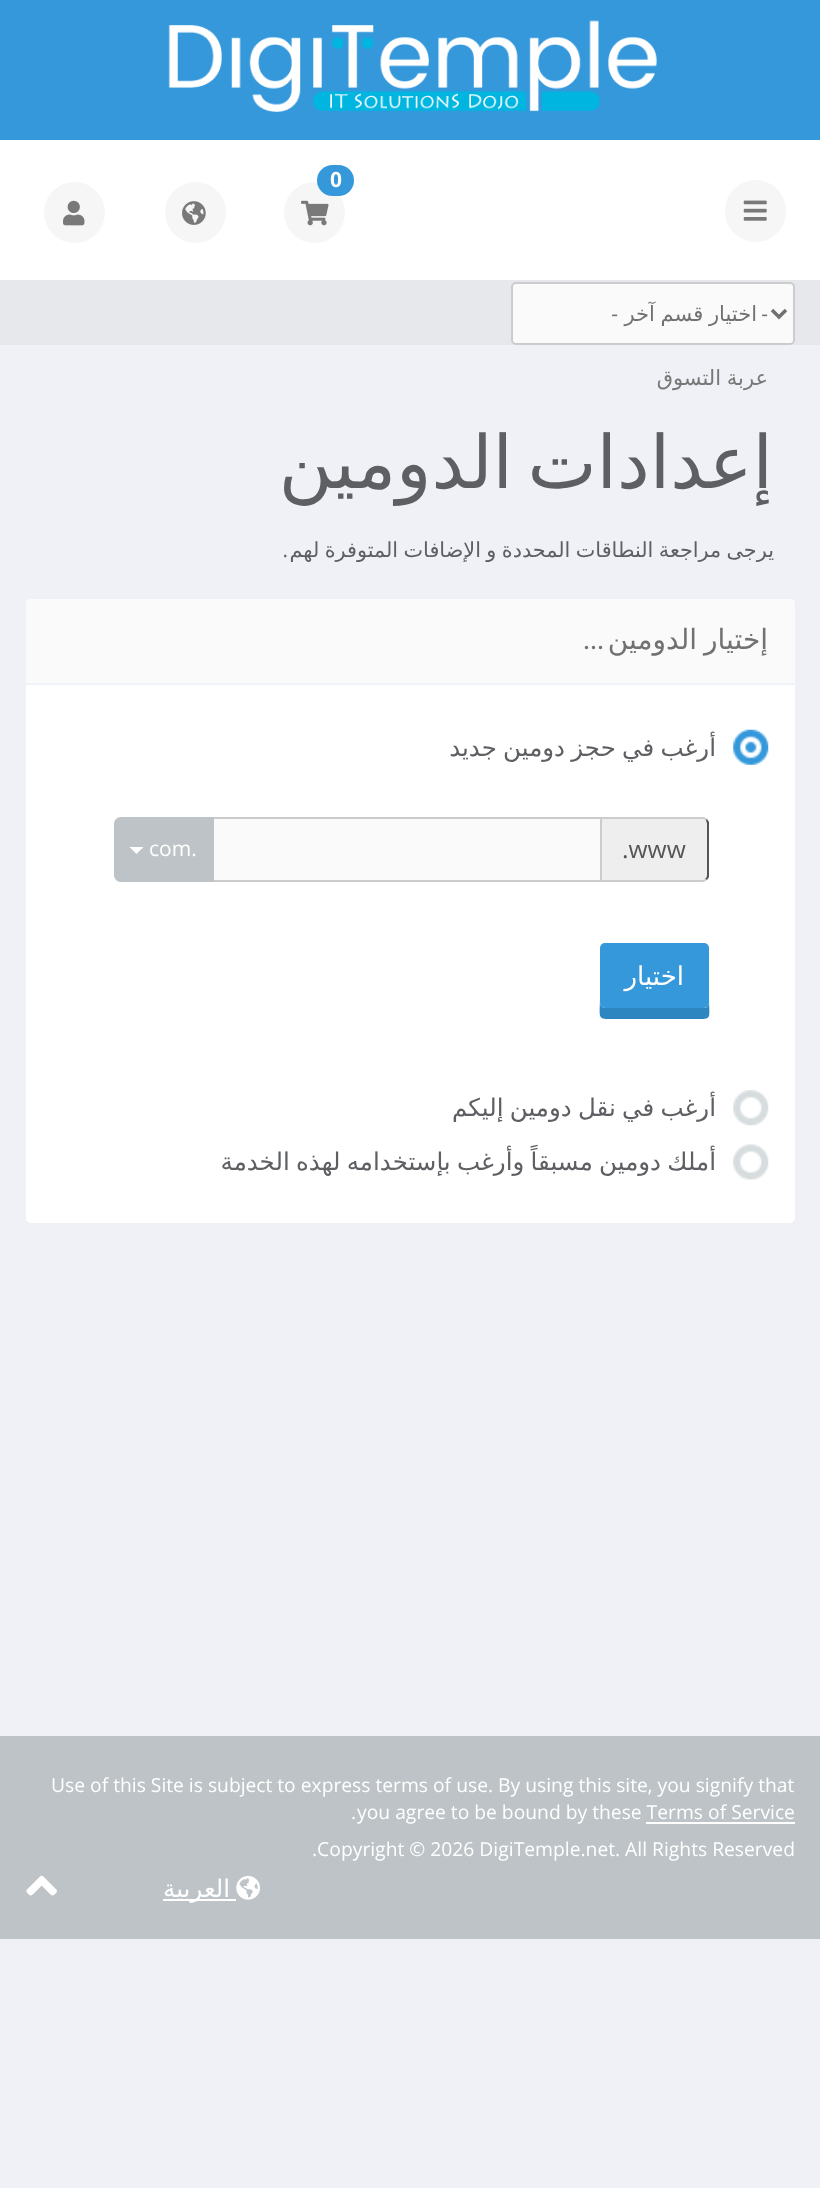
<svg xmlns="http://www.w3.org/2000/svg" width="820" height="2188">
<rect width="100%" height="100%" fill="#f0f1f6"/>
<rect y="140" width="820" height="140" fill="#fff"/>
<rect width="820" height="140" fill="#3598db"/>
<image x="168" y="20" width="489" height="92" href="media/1.png"/>
<rect x="725" y="180" width="61" height="62" rx="30.5" fill="#f6f6f6"/>
<image x="743" y="200" width="24" height="21" href="media/2.png"/>
<circle cx="314.5" cy="212.5" r="30.5" fill="#f6f6f6"/>
<rect x="317" y="165" width="37" height="31" rx="15.5" fill="#3598db"/>
<text x="330" y="187" style="font-family:Open Sans;font-size:21px;font-weight:bold;fill:#fff">0</text>
<image x="301" y="200" width="28" height="26" href="media/3.png"/>
<circle cx="195.5" cy="212.5" r="30.5" fill="#f6f6f6"/>
<image x="182" y="201" width="24" height="24" href="media/4.png"/>
<circle cx="74.5" cy="212.5" r="30.5" fill="#f6f6f6"/>
<image x="63" y="200" width="22" height="26" href="media/5.png"/>
<rect y="280" width="820" height="65" fill="#e7e8ec"/>
<rect x="512" y="283" width="282" height="61" rx="4" fill="#fafafa" stroke="#ccc" stroke-width="2"/>
<path d="M772 310l7 7l7-7" fill="none" stroke="#717171" stroke-width="3.5"/>
<text x="768" y="321" style="font-family:Open Sans;font-size:21px;direction:rtl;fill:#717171">-</text>
<text x="757" y="321" word-spacing="-1" style="font-family:DejaVu Sans;font-size:21px;direction:rtl;fill:#717171">اختيار قسم آخر</text>
<text x="618" y="321" style="font-family:Open Sans;font-size:21px;direction:rtl;fill:#717171">-</text>
<text x="768" y="385" word-spacing="-1" style="font-family:DejaVu Sans;font-size:21px;direction:rtl;fill:#777">عربة التسوق</text>
<text x="773" y="488" word-spacing="-9" style="font-family:DejaVu Sans;font-size:73.5px;direction:rtl;fill:#5d5f63">إعدادات الدومين</text>
<text x="774" y="557" word-spacing="-1.25" style="font-family:DejaVu Sans;font-size:20.8px;direction:rtl;fill:#5d5f63">يرجى مراجعة النطاقات المحددة و الإضافات المتوفرة لهم</text>
<text x="288" y="557" style="font-family:Open Sans;font-size:20.8px;direction:rtl;fill:#5d5f63">.</text>
<rect x="26" y="599" width="769" height="624" rx="5" fill="#fff"/>
<path d="M31 599h759c3 0 5 2 5 5v80h-769v-80c0-3 2-5 5-5z" fill="#fafafa"/>
<rect x="26" y="683" width="769" height="2" fill="#eff2f7"/>
<text x="768" y="649" word-spacing="-2" style="font-family:DejaVu Sans;font-size:28px;direction:rtl;fill:#717171">إختيار الدومين</text>
<text x="604" y="649" style="font-family:Source Sans Pro;font-size:28px;direction:rtl;fill:#717171">...</text>
<image x="733" y="729" width="36" height="36" href="media/6.png"/>
<text x="716" y="756" word-spacing="-1.5" style="font-family:DejaVu Sans;font-size:24.5px;direction:rtl;fill:#5d5f63">أرغب في حجز دومين جديد</text>
<path d="M602 817h100c4 0 7 3 7 7v51c0 4-3 7-7 7h-100z" fill="#eee"/>
<path d="M602 819h101l3 1l1-1l-3-2h-102z" fill="#ccc"/>
<path d="M705 879c1-1 2-2 2-4v-51c0-2-1-3-1-4l1-1l2 3v55l-2 3z" fill="#555"/>
<path d="M602 880v2h101l4-2l-2-1l-2 1z" fill="#ccc"/>
<text x="622" y="858" style="font-family:Open Sans;font-size:24.5px;fill:#555">.www</text>
<rect x="213" y="818" width="388" height="63" fill="#fafafa" stroke="#ccc" stroke-width="2"/>
<path d="M121 817h93v65h-93c-4 0-7-3-7-7v-51c0-4 3-7 7-7z" fill="#bdc3c7"/>
<text x="149" y="856" style="font-family:Open Sans;font-size:21px;fill:#fff">com.</text>
<path d="M129.5 847h14l-7 7z" fill="#fff"/>
<path d="M600 957v39c0 26-5 23 22 23h66c26 0 21 3 21-23v-39v46c0 3-3 5-5 5h-98c-3 0-6-2-6-5z" fill="#2e86c1"/>
<rect x="600" y="943" width="109" height="65" rx="5" fill="#3598db"/>
<text x="684" y="985" style="font-family:DejaVu Sans;font-size:26px;direction:rtl;fill:#fff">اختيار</text>
<image x="733" y="1090" width="36" height="36" href="media/7.png"/>
<text x="716" y="1116" word-spacing="-1.5" style="font-family:DejaVu Sans;font-size:24.5px;direction:rtl;fill:#5d5f63">أرغب في نقل دومين إليكم</text>
<image x="733" y="1144" width="36" height="36" href="media/8.png"/>
<text x="716" y="1170" word-spacing="-1.5" style="font-family:DejaVu Sans;font-size:24.5px;direction:rtl;fill:#5d5f63">أملك دومين مسبقاً وأرغب بإستخدامه لهذه الخدمة</text>
<rect y="1736" width="820" height="203" fill="#bdc3c7"/>
<text x="51" y="1792" style="font-family:Open Sans;font-size:19.25px;fill:#fff">Use of this Site is subject to express terms of use. By using this site, you signify that</text>
<text x="357" y="1819" style="font-family:Open Sans;font-size:19.25px;fill:#fff">you agree to be bound by these Terms of Service</text>
<text x="351" y="1819" style="font-family:Open Sans;font-size:19.25px;fill:#fff">.</text>
<rect x="646" y="1822" width="149" height="2" fill="#fff"/>
<text x="312" y="1856" style="font-family:Open Sans;font-size:19.25px;fill:#fff">.Copyright © 2026 DigiTemple.net. All Rights Reserved</text>
<image x="236" y="1876" width="24" height="24" href="media/9.png"/>
<rect x="163" y="1899" width="73" height="2" fill="#fff"/>
<text x="230" y="1897" style="font-family:DejaVu Sans;font-size:24.5px;direction:rtl;fill:#fff">العربية</text>
<image x="26" y="1875" width="31" height="21" href="media/10.png"/>
</svg>
